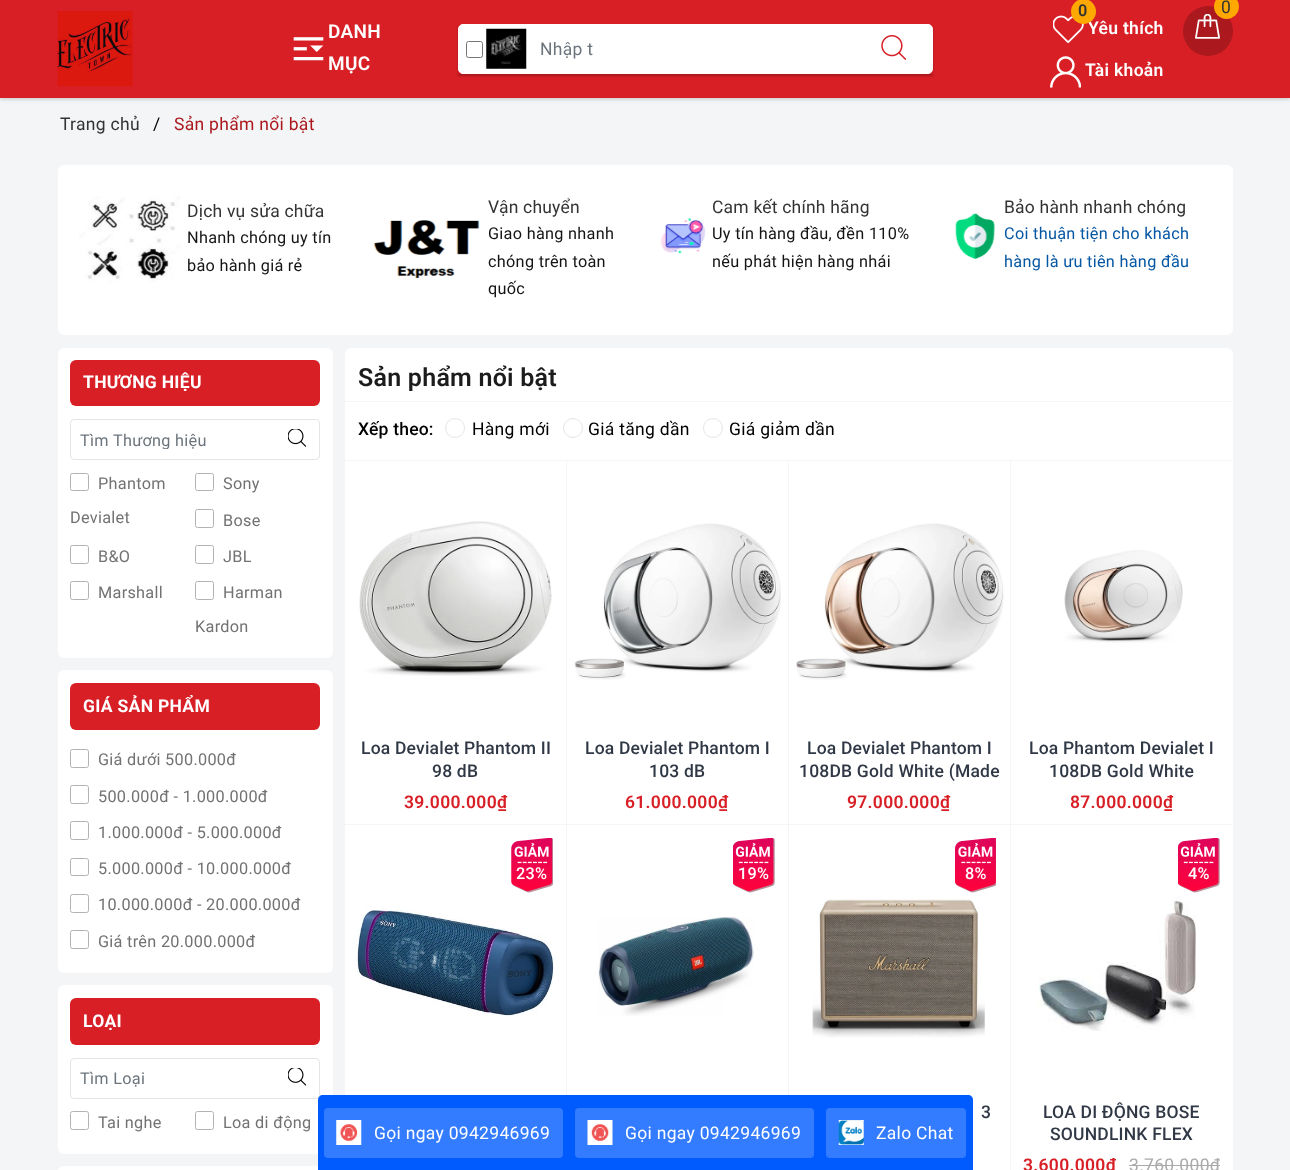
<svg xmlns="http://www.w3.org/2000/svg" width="1290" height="1170">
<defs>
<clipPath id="clip1"><path d="M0 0h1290v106h-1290zm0 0h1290v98h-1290z" clip-rule="evenodd"/></clipPath>
<clipPath id="clip2"><path d="M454 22h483v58h-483zm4 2h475v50h-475z" clip-rule="evenodd"/></clipPath>
<clipPath id="clip3"><rect x="80" y="430" width="189" height="19"/></clipPath>
</defs>
<rect width="100%" height="100%" fill="#f3f5f7"/>
<rect width="1290" height="98" fill="#d81f26"/>
<g clip-path="url(#clip1)">
<rect y="1" width="1290" height="98" fill="#00000033" filter="blur(2px)"/>
</g>
<image x="57" y="11" width="76" height="76" href="media/1.png"/>
<text x="328" y="38" style="font-family:Roboto;font-size:19px;font-weight:600;letter-spacing:0.3px;fill:#fff">DANH</text>
<image x="293" y="37" width="31" height="24" href="media/2.png"/>
<text x="328" y="70" style="font-family:Roboto;font-size:19px;font-weight:600;letter-spacing:0.3px;fill:#fff">MỤC</text>
<g clip-path="url(#clip2)">
<rect x="458" y="26" width="475" height="50" fill="#0000003d" filter="blur(1px)"/>
</g>
<path d="M463 24.5h392.5v49h-392.5c-2.5 0-4.5-2-4.5-4.5v-40c0-2.5 2-4.5 4.5-4.5z" fill="#fff" stroke="#fff"/>
<rect x="466.5" y="41.5" width="16" height="16" rx="2" fill="none" stroke="#767676"/>
<image x="486" y="28" width="41" height="41" href="media/3.png"/>
<text x="540" y="55" style="font-family:Roboto;font-size:17.5px;letter-spacing:0.3px;fill:#6c757d">Nhập t</text>
<path d="M855.5 24.5h72.5c2.5 0 4.5 2 4.5 4.5v40c0 2.5-2 4.5-4.5 4.5h-72.5z" fill="#fff" stroke="#fff"/>
<image x="881" y="35" width="25" height="25" href="media/4.png"/>
<image x="1053" y="15" width="31" height="29" href="media/5.png"/>
<text x="1088" y="34" style="font-family:Roboto;font-size:17.5px;font-weight:600;letter-spacing:0.3px;fill:#fff">Yêu thích</text>
<circle cx="1083.5" cy="11.5" r="12.5" fill="#ffa800"/>
<text x="1078" y="16" style="font-family:Roboto;font-size:16.25px;font-weight:600;letter-spacing:0.3px;fill:#333">0</text>
<circle cx="1208" cy="31" r="25" fill="#ab191e"/>
<image x="1195" y="14" width="25" height="25" href="media/6.png"/>
<circle cx="1226.5" cy="6.5" r="12.5" fill="#ffa800"/>
<text x="1221" y="13" style="font-family:Roboto;font-size:17.5px;letter-spacing:0.3px;fill:#333">0</text>
<image x="1050" y="56" width="31" height="32" href="media/7.png"/>
<text x="1085" y="76" style="font-family:Roboto;font-size:17.5px;font-weight:600;letter-spacing:0.3px;fill:#fff">Tài khoản</text>
<text x="60" y="130" style="font-family:Roboto;font-size:17.5px;letter-spacing:0.3px;fill:#333">Trang chủ</text>
<text x="153" y="130" style="font-family:Roboto;font-size:17.5px;letter-spacing:0.3px;fill:#000">/</text>
<text x="174" y="130" style="font-family:Roboto;font-size:17.5px;letter-spacing:0.3px;fill:#ab191e">Sản phẩm nổi bật</text>
<rect x="58" y="165" width="1175" height="170" rx="6" fill="#fff"/>
<image x="79" y="196" width="102" height="87" href="media/8.png"/>
<text x="187" y="217" style="font-family:Roboto;font-size:17.5px;letter-spacing:0.2px;fill:#333">Dịch vụ sửa chữa</text>
<text x="187" y="243" style="font-family:Roboto;font-size:16.25px;letter-spacing:0.3px;fill:#141414">Nhanh chóng uy tín</text>
<text x="187" y="271" style="font-family:Roboto;font-size:16.25px;letter-spacing:0.3px;fill:#141414">bảo hành giá rẻ</text>
<image x="373" y="220" width="107" height="59" href="media/9.png"/>
<text x="488" y="213" style="font-family:Roboto;font-size:17.5px;letter-spacing:0.2px;fill:#333">Vận chuyển</text>
<text x="488" y="239" style="font-family:Roboto;font-size:16.25px;letter-spacing:0.3px;fill:#141414">Giao hàng nhanh</text>
<text x="488" y="267" style="font-family:Roboto;font-size:16.25px;letter-spacing:0.3px;fill:#141414">chóng trên toàn</text>
<text x="488" y="294" style="font-family:Roboto;font-size:16.25px;letter-spacing:0.3px;fill:#141414">quốc</text>
<image x="660" y="218" width="46" height="36" href="media/10.png"/>
<text x="712" y="213" style="font-family:Roboto;font-size:17.5px;letter-spacing:0.2px;fill:#333">Cam kết chính hãng</text>
<text x="712" y="239" style="font-family:Roboto;font-size:16.25px;letter-spacing:0.3px;fill:#141414">Uy tín hàng đầu, đền 110%</text>
<text x="712" y="267" style="font-family:Roboto;font-size:16.25px;letter-spacing:0.3px;fill:#141414">nếu phát hiện hàng nhái</text>
<image x="955" y="213" width="40" height="46" href="media/11.png"/>
<text x="1004" y="213" style="font-family:Roboto;font-size:17.5px;letter-spacing:0.2px;fill:#333">Bảo hành nhanh chóng</text>
<text x="1004" y="239" style="font-family:Roboto;font-size:16.25px;letter-spacing:0.3px;fill:#0657a3">Coi thuận tiện cho khách</text>
<text x="1004" y="267" style="font-family:Roboto;font-size:16.25px;letter-spacing:0.3px;fill:#0657a3">hàng là ưu tiên hàng đầu</text>
<rect x="58" y="348" width="275" height="310" rx="6" fill="#fff"/>
<rect x="70" y="360" width="250" height="46" rx="6" fill="#d81f26"/>
<text x="83" y="388" style="font-family:Roboto;font-size:17.5px;font-weight:bold;letter-spacing:0.3px;fill:#fff">THƯƠNG HIỆU</text>
<rect x="70.5" y="419.5" width="249" height="40" rx="3.5" fill="none" stroke="#e5e5e5"/>
<g clip-path="url(#clip3)">
<text x="80" y="446" style="font-family:Roboto;font-size:16.25px;letter-spacing:0.3px;fill:#6c757d">Tìm Thương hiệu</text>
</g>
<image x="288" y="429" width="18" height="18" href="media/12.png"/>
<rect x="70.5" y="473.5" width="18" height="17" rx="2" fill="none" stroke="#b3b3b3"/>
<text x="98" y="489" style="font-family:Roboto;font-size:16.25px;letter-spacing:0.3px;fill:#727272">Phantom</text>
<text x="70" y="523" style="font-family:Roboto;font-size:16.25px;letter-spacing:0.3px;fill:#727272">Devialet</text>
<rect x="195.5" y="473.5" width="18" height="17" rx="2" fill="none" stroke="#b3b3b3"/>
<text x="223" y="489" style="font-family:Roboto;font-size:16.25px;letter-spacing:0.3px;fill:#727272">Sony</text>
<rect x="195.5" y="509.5" width="18" height="18" rx="2" fill="none" stroke="#b3b3b3"/>
<text x="223" y="526" style="font-family:Roboto;font-size:16.25px;letter-spacing:0.3px;fill:#727272">Bose</text>
<rect x="70.5" y="545.5" width="18" height="18" rx="2" fill="none" stroke="#b3b3b3"/>
<text x="98" y="562" style="font-family:Roboto;font-size:16.25px;letter-spacing:0.3px;fill:#727272">B&amp;O</text>
<rect x="195.5" y="545.5" width="18" height="18" rx="2" fill="none" stroke="#b3b3b3"/>
<text x="223" y="562" style="font-family:Roboto;font-size:16.25px;letter-spacing:0.3px;fill:#727272">JBL</text>
<rect x="70.5" y="581.5" width="18" height="18" rx="2" fill="none" stroke="#b3b3b3"/>
<text x="98" y="598" style="font-family:Roboto;font-size:16.25px;letter-spacing:0.3px;fill:#727272">Marshall</text>
<rect x="195.5" y="581.5" width="18" height="18" rx="2" fill="none" stroke="#b3b3b3"/>
<text x="223" y="598" style="font-family:Roboto;font-size:16.25px;letter-spacing:0.3px;fill:#727272">Harman</text>
<text x="195" y="632" style="font-family:Roboto;font-size:16.25px;letter-spacing:0.3px;fill:#727272">Kardon</text>
<rect x="58" y="670" width="275" height="303" rx="6" fill="#fff"/>
<rect x="70" y="683" width="250" height="47" rx="6" fill="#d81f26"/>
<text x="83" y="712" style="font-family:Roboto;font-size:17.5px;font-weight:bold;letter-spacing:0.3px;fill:#fff">GIÁ SẢN PHẨM</text>
<rect x="70.5" y="749.5" width="18" height="18" rx="2" fill="none" stroke="#b3b3b3"/>
<text x="98" y="765" style="font-family:Roboto;font-size:16.25px;letter-spacing:0.3px;fill:#727272">Giá dưới 500.000đ</text>
<rect x="70.5" y="785.5" width="18" height="18" rx="2" fill="none" stroke="#b3b3b3"/>
<text x="98" y="802" style="font-family:Roboto;font-size:16.25px;letter-spacing:0.3px;fill:#727272">500.000đ - 1.000.000đ</text>
<rect x="70.5" y="821.5" width="18" height="18" rx="2" fill="none" stroke="#b3b3b3"/>
<text x="98" y="838" style="font-family:Roboto;font-size:16.25px;letter-spacing:0.3px;fill:#727272">1.000.000đ - 5.000.000đ</text>
<rect x="70.5" y="858.5" width="18" height="17" rx="2" fill="none" stroke="#b3b3b3"/>
<text x="98" y="874" style="font-family:Roboto;font-size:16.25px;letter-spacing:0.3px;fill:#727272">5.000.000đ - 10.000.000đ</text>
<rect x="70.5" y="894.5" width="18" height="18" rx="2" fill="none" stroke="#b3b3b3"/>
<text x="98" y="910" style="font-family:Roboto;font-size:16.25px;letter-spacing:0.3px;fill:#727272">10.000.000đ - 20.000.000đ</text>
<rect x="70.5" y="930.5" width="18" height="18" rx="2" fill="none" stroke="#b3b3b3"/>
<text x="98" y="947" style="font-family:Roboto;font-size:16.25px;letter-spacing:0.3px;fill:#727272">Giá trên 20.000.000đ</text>
<rect x="58" y="985" width="275" height="169" rx="6" fill="#fff"/>
<rect x="70" y="998" width="250" height="47" rx="6" fill="#d81f26"/>
<text x="83" y="1027" style="font-family:Roboto;font-size:17.5px;font-weight:bold;letter-spacing:0.3px;fill:#fff">LOẠI</text>
<rect x="70.5" y="1058.5" width="249" height="40" rx="3.5" fill="none" stroke="#e5e5e5"/>
<text x="80" y="1084" style="font-family:Roboto;font-size:16.25px;letter-spacing:0.3px;fill:#6c757d">Tìm Loại</text>
<image x="288" y="1068" width="18" height="18" href="media/13.png"/>
<rect x="70.5" y="1111.5" width="18" height="18" rx="2" fill="none" stroke="#b3b3b3"/>
<text x="98" y="1128" style="font-family:Roboto;font-size:16.25px;letter-spacing:0.3px;fill:#727272">Tai nghe</text>
<rect x="195.5" y="1111.5" width="18" height="18" rx="2" fill="none" stroke="#b3b3b3"/>
<text x="223" y="1128" style="font-family:Roboto;font-size:16.25px;letter-spacing:0.3px;fill:#727272">Loa di động</text>
<rect x="58" y="1166" width="275" height="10" rx="6" fill="#fff"/>
<rect x="345" y="348" width="888" height="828" rx="6" fill="#fff"/>
<text x="358" y="386" style="font-family:Roboto;font-size:25px;font-weight:600;letter-spacing:0.25px;fill:#1c1c1c">Sản phẩm nổi bật</text>
<rect x="345" y="401" width="888" height="1" fill="#f3f5f7"/>
<rect x="345" y="460" width="888" height="1" fill="#f3f5f7"/>
<text x="358" y="435" style="font-family:Roboto;font-size:17.5px;font-weight:500;letter-spacing:0.2px;fill:#000">Xếp theo:</text>
<circle cx="455" cy="428" r="9.5" fill="none" stroke="#e5e5e5"/>
<text x="472" y="435" style="font-family:Roboto;font-size:17.5px;letter-spacing:0.3px;fill:#000">Hàng mới</text>
<circle cx="573" cy="428" r="9.5" fill="none" stroke="#e5e5e5"/>
<text x="588" y="435" style="font-family:Roboto;font-size:17.5px;letter-spacing:0.3px;fill:#000">Giá tăng dần</text>
<circle cx="713" cy="428" r="9.5" fill="none" stroke="#e5e5e5"/>
<text x="729" y="435" style="font-family:Roboto;font-size:17.5px;letter-spacing:0.3px;fill:#000">Giá giảm dần</text>
<rect x="566" y="461" width="1" height="634" fill="#f3f5f7"/>
<rect x="345" y="824" width="223" height="1" fill="#f3f5f7"/>
<image x="359" y="521" width="193" height="155" href="media/14.png"/>
<text x="361" y="754" style="font-family:Roboto;font-size:17.5px;font-weight:500;letter-spacing:0.2px;fill:#303846">Loa Devialet Phantom II</text>
<text x="432" y="777" style="font-family:Roboto;font-size:17.5px;font-weight:500;letter-spacing:0.2px;fill:#303846">98 dB</text>
<text x="404" y="808" style="font-family:Roboto;font-size:17.5px;font-weight:600;letter-spacing:0.3px;fill:#d81f26">39.000.000₫</text>
<rect x="788" y="461" width="1" height="634" fill="#f3f5f7"/>
<rect x="568" y="824" width="221" height="1" fill="#f3f5f7"/>
<image x="574" y="523" width="207" height="157" href="media/15.png"/>
<text x="585" y="754" style="font-family:Roboto;font-size:17.5px;font-weight:500;letter-spacing:0.2px;fill:#303846">Loa Devialet Phantom I</text>
<text x="649" y="777" style="font-family:Roboto;font-size:17.5px;font-weight:500;letter-spacing:0.2px;fill:#303846">103 dB</text>
<text x="625" y="808" style="font-family:Roboto;font-size:17.5px;font-weight:600;letter-spacing:0.3px;fill:#d81f26">61.000.000₫</text>
<rect x="1010" y="461" width="1" height="709" fill="#f3f5f7"/>
<rect x="789" y="824" width="444" height="1" fill="#f3f5f7"/>
<image x="796" y="523" width="208" height="157" href="media/16.png"/>
<text x="807" y="754" style="font-family:Roboto;font-size:17.5px;font-weight:500;letter-spacing:0.2px;fill:#303846">Loa Devialet Phantom I</text>
<text x="799" y="777" style="font-family:Roboto;font-size:17.5px;font-weight:500;letter-spacing:0.2px;fill:#303846">108DB Gold White (Made</text>
<text x="847" y="808" style="font-family:Roboto;font-size:17.5px;font-weight:600;letter-spacing:0.3px;fill:#d81f26">97.000.000₫</text>
<image x="1064" y="550" width="119" height="93" href="media/17.png"/>
<text x="1029" y="754" style="font-family:Roboto;font-size:17.5px;font-weight:500;letter-spacing:0.2px;fill:#303846">Loa Phantom Devialet I</text>
<text x="1049" y="777" style="font-family:Roboto;font-size:17.5px;font-weight:500;letter-spacing:0.2px;fill:#303846">108DB Gold White</text>
<text x="1070" y="808" style="font-family:Roboto;font-size:17.5px;font-weight:600;letter-spacing:0.3px;fill:#d81f26">87.000.000₫</text>
<image x="511" y="838" width="42" height="55" href="media/18.png"/>
<text x="516" y="879" style="font-family:Roboto;font-size:16.25px;font-weight:500;letter-spacing:0.3px;fill:#fff">23%</text>
<image x="356" y="909" width="198" height="107" href="media/19.png"/>
<image x="733" y="838" width="42" height="55" href="media/20.png"/>
<text x="738" y="879" style="font-family:Roboto;font-size:16.25px;font-weight:500;letter-spacing:0.3px;fill:#fff">19%</text>
<image x="598" y="916" width="156" height="100" href="media/21.png"/>
<image x="955" y="838" width="41" height="55" href="media/22.png"/>
<text x="965" y="879" style="font-family:Roboto;font-size:16.25px;font-weight:500;letter-spacing:0.3px;fill:#fff">8%</text>
<image x="812" y="899" width="173" height="139" href="media/23.png"/>
<text x="981" y="1118" style="font-family:Roboto;font-size:17.5px;font-weight:500;letter-spacing:0.2px;fill:#303846">3</text>
<image x="1178" y="838" width="42" height="55" href="media/20.png"/>
<text x="1188" y="879" style="font-family:Roboto;font-size:16.25px;font-weight:500;letter-spacing:0.3px;fill:#fff">4%</text>
<image x="1038" y="895" width="158" height="136" href="media/24.png"/>
<text x="1043" y="1118" style="font-family:Roboto;font-size:17.5px;font-weight:500;letter-spacing:0.2px;fill:#303846">LOA DI ĐỘNG BOSE</text>
<text x="1050" y="1140" style="font-family:Roboto;font-size:17.5px;font-weight:500;letter-spacing:0.2px;fill:#303846">SOUNDLINK FLEX</text>
<text x="1023" y="1171" style="font-family:Roboto;font-size:17.5px;font-weight:600;letter-spacing:0.3px;fill:#d81f26">3.600.000₫</text>
<text x="1129" y="1171" style="font-family:Roboto;font-size:17.5px;letter-spacing:0.3px;fill:#aaa">3.760.000₫</text>
<rect x="1129" y="1165" width="91" height="1" fill="#aaa"/>
<path d="M323 1095h645c3 0 5 2 5 5v70h-655v-70c0-3 2-5 5-5z" fill="#005bff"/>
<rect x="324" y="1108" width="239" height="50" rx="4" fill="#337cff"/>
<image x="336" y="1120" width="26" height="25" href="media/25.png"/>
<text x="374" y="1139" style="font-family:Roboto;font-size:17.5px;letter-spacing:0.3px;fill:#fff">Gọi ngay 0942946969</text>
<rect x="575" y="1108" width="239" height="50" rx="4" fill="#337cff"/>
<image x="587" y="1120" width="26" height="25" href="media/26.png"/>
<text x="625" y="1139" style="font-family:Roboto;font-size:17.5px;letter-spacing:0.3px;fill:#fff">Gọi ngay 0942946969</text>
<rect x="826" y="1108" width="140" height="50" rx="4" fill="#337cff"/>
<image x="838" y="1120" width="26" height="25" href="media/27.png"/>
<text x="876" y="1139" style="font-family:Roboto;font-size:17.5px;letter-spacing:0.3px;fill:#fff">Zalo Chat</text>
</svg>
